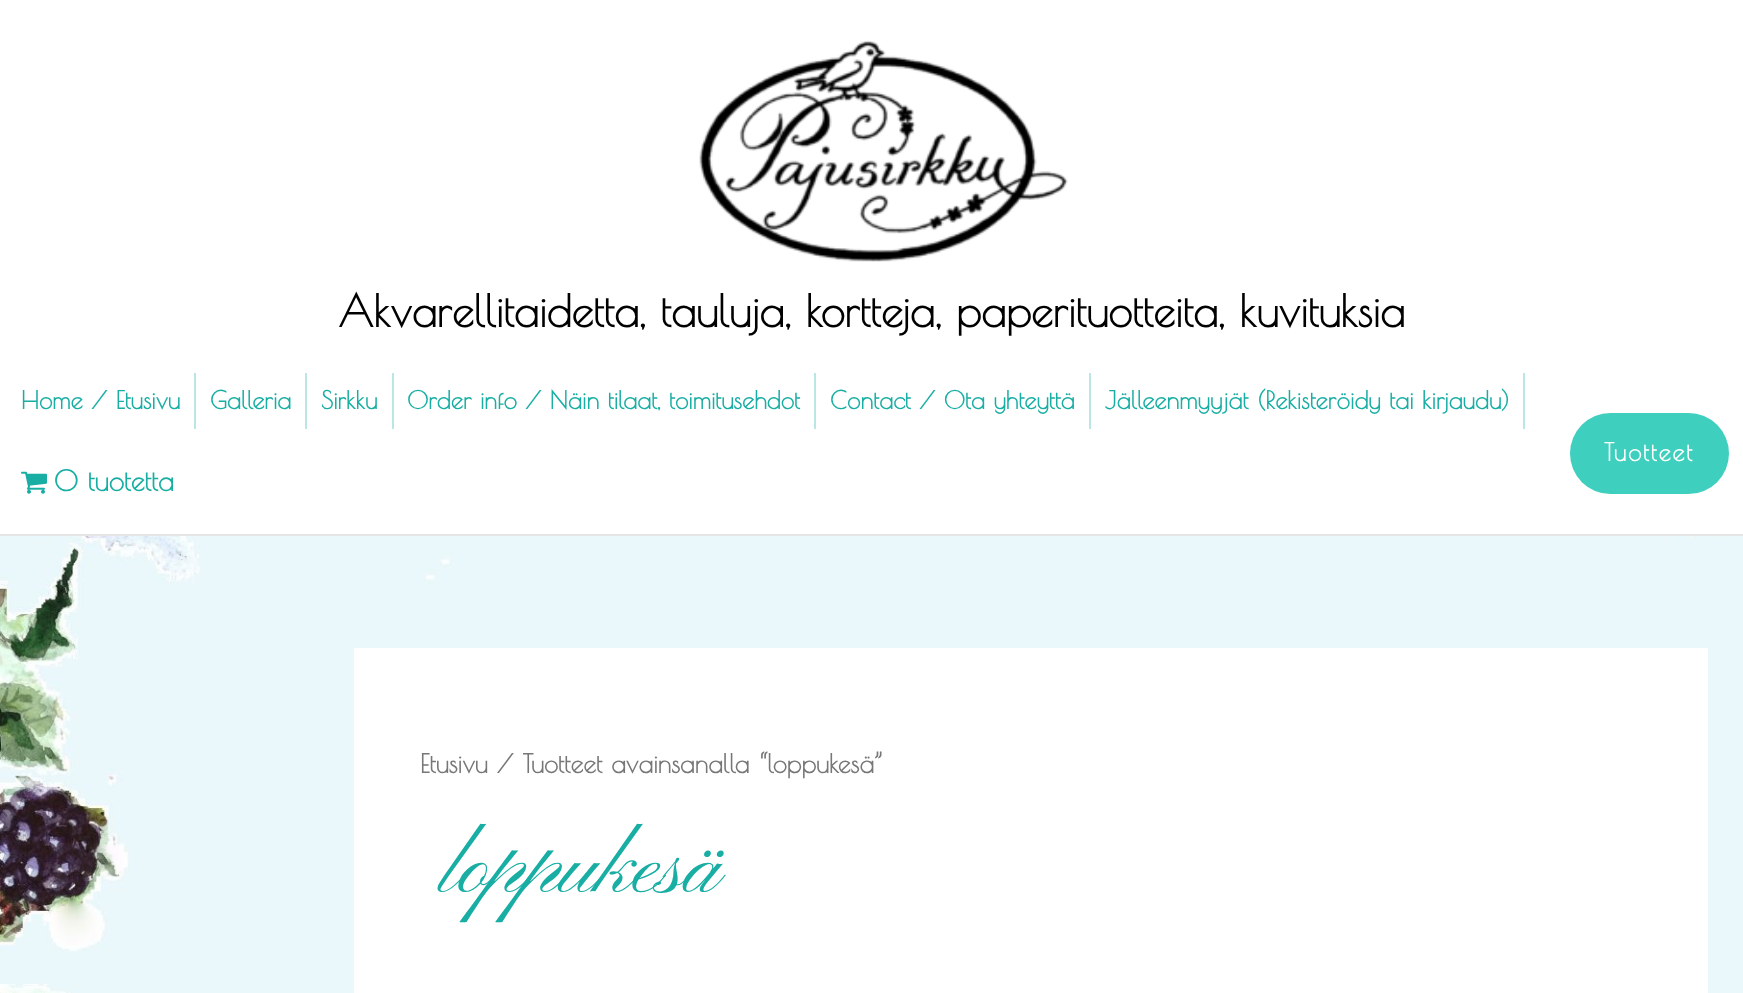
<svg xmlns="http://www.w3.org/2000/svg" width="1743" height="993">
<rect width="100%" height="100%" fill="#fff"/>
<image x="0" y="536" width="1743" height="457" href="media/1.png"/>
<image x="699" y="40" width="369" height="222" href="media/2.png"/>
<text x="338" y="327" style="font-family:Poiret One;font-size:43.75px;font-weight:bold;fill:#000">Akvarellitaidetta, tauluja, kortteja, paperituotteita, kuvituksia</text>
<rect y="534" width="1743" height="2" fill="#e5e5e5"/>
<rect x="194" y="373" width="2" height="56" fill="#bae7e4"/>
<text x="21" y="409" style="font-family:Poiret One;font-size:24.5px;font-weight:bold;fill:#18aea4">Home / Etusivu</text>
<rect x="305" y="373" width="2" height="56" fill="#bae7e4"/>
<text x="210" y="409" style="font-family:Poiret One;font-size:24.5px;font-weight:bold;fill:#18aea4">Galleria</text>
<rect x="392" y="373" width="2" height="56" fill="#bae7e4"/>
<text x="321" y="409" style="font-family:Poiret One;font-size:24.5px;font-weight:bold;fill:#18aea4">Sirkku</text>
<rect x="814" y="373" width="2" height="56" fill="#bae7e4"/>
<text x="407" y="409" style="font-family:Poiret One;font-size:24.5px;font-weight:bold;fill:#18aea4">Order info / Näin tilaat, toimitusehdot</text>
<rect x="1089" y="373" width="2" height="56" fill="#bae7e4"/>
<text x="830" y="409" style="font-family:Poiret One;font-size:24.5px;font-weight:bold;fill:#18aea4">Contact / Ota yhteyttä</text>
<rect x="1523" y="373" width="2" height="56" fill="#bae7e4"/>
<text x="1105" y="409" style="font-family:Poiret One;font-size:24.5px;font-weight:bold;fill:#18aea4">Jälleenmyyjät (Rekisteröidy tai kirjaudu)</text>
<image x="21" y="471" width="26" height="23" href="media/3.png"/>
<text x="54" y="491" style="font-family:Poiret One;font-size:28px;font-weight:bold;fill:#18aea4">0 tuotetta</text>
<rect x="1570" y="413" width="159" height="81" rx="40.5" fill="#3fcfbe"/>
<text x="1604" y="461" style="font-family:Poiret One;font-size:24.5px;font-weight:bold;letter-spacing:1.75px;fill:#fff">Tuotteet</text>
<rect x="354" y="648" width="1354" height="345" fill="#fff"/>
<text x="420" y="773" style="font-family:Poiret One;font-size:25.75px;font-weight:bold;fill:#777">Etusivu / Tuotteet avainsanalla “loppukesä”</text>
<text x="440" y="892" style="font-family:Pinyon Script;font-size:87.5px;letter-spacing:-1.25px;fill:#18aea4">loppukesä</text>
</svg>
